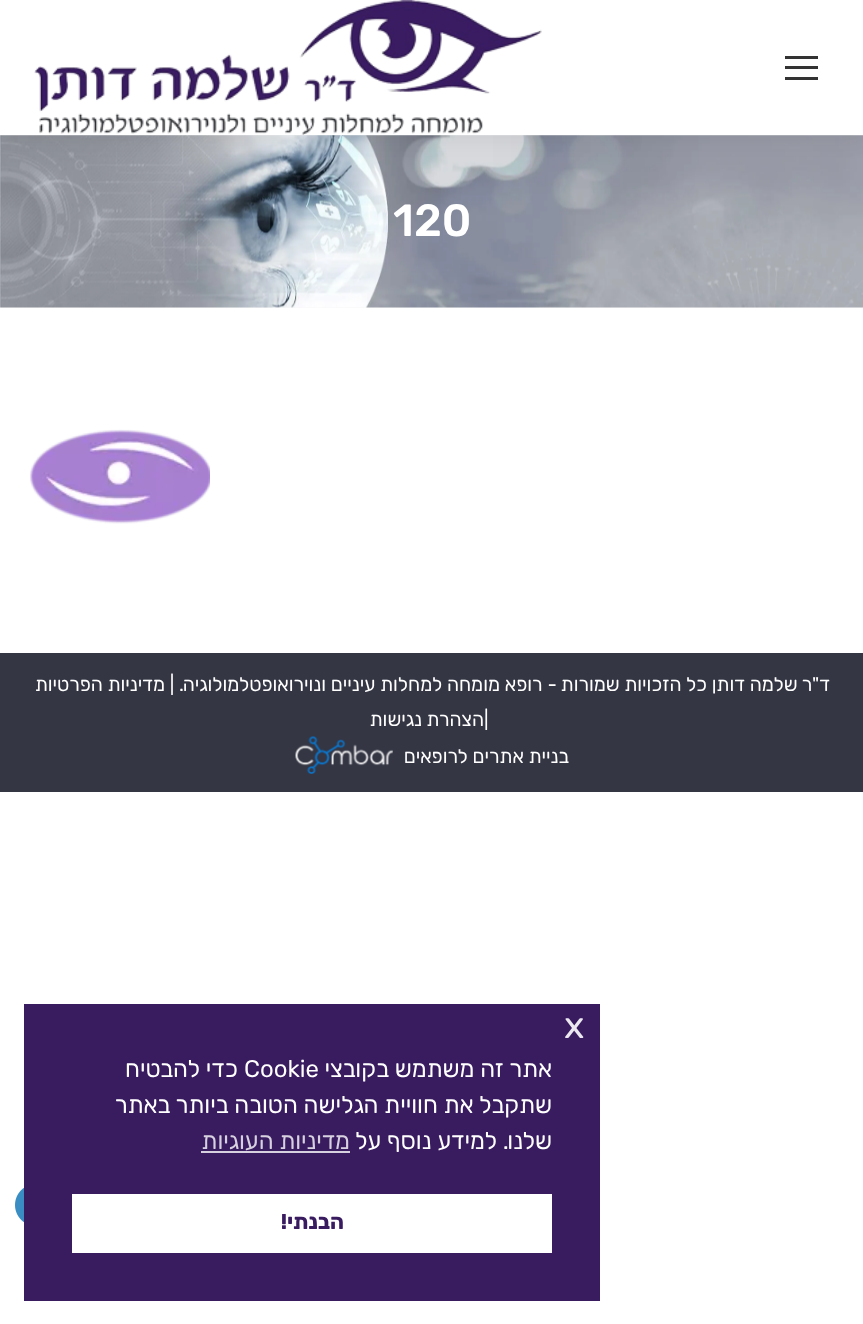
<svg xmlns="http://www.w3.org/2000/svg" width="863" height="1324">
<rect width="100%" height="100%" fill="#fff"/>
<rect y="135" width="863" height="173" fill="#f7f7f7"/>
<image x="0" y="135" width="863" height="173" href="media/2.png"/>
<rect x="-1" y="-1" width="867" height="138" fill="#00000012" filter="blur(11px)"/>
<rect width="863" height="135" fill="#fff"/>
<rect x="785" y="56" width="33" height="3" fill="#333"/>
<rect x="785" y="66" width="33" height="3" fill="#333"/>
<rect x="785" y="77" width="33" height="3" fill="#333"/>
<image x="34" y="0" width="508" height="135" href="media/1.png"/>
<text x="393" y="236" style="font-family:Rubik;font-size:45px;font-weight:500;fill:#fff">120</text>
<image x="30" y="429" width="180" height="95" href="media/3.png"/>
<rect y="653" width="863" height="139" fill="#343644"/>
<text x="830" y="691" style="font-family:Rubik;font-size:19.5px;direction:rtl;fill:#fff">ד"ר שלמה דותן</text>
<text x="707" y="691" style="font-family:Rubik;font-size:19.5px;direction:rtl;fill:#fff">כל הזכויות שמורות - רופא מומחה למחלות עיניים ונוירואופטלמולוגיה. |</text>
<text x="165" y="691" style="font-family:Rubik;font-size:19.5px;direction:rtl;fill:#fff">מדיניות הפרטיות</text>
<text x="484" y="726" style="font-family:Rubik;font-size:19.5px;fill:#fff">|</text>
<text x="484" y="726" style="font-family:Rubik;font-size:19.5px;direction:rtl;fill:#fff">הצהרת נגישות</text>
<text x="569" y="763" style="font-family:Rubik;font-size:19.5px;direction:rtl;fill:#fff">בניית אתרים לרופאים</text>
<image x="295" y="736" width="98" height="38" href="media/4.png"/>
<rect x="24" y="1004" width="576" height="297" fill="#391b60"/>
<text x="564" y="1038" style="font-family:Rubik;font-size:38px;fill:#ebe8ef">x</text>
<text x="552" y="1077" style="font-family:Rubik;font-size:24px;direction:rtl;fill:#fff">אתר זה משתמש בקובצי</text>
<text x="244" y="1077" style="font-family:Rubik;font-size:24px;fill:#fff">Cookie</text>
<text x="238" y="1077" style="font-family:Rubik;font-size:24px;direction:rtl;fill:#fff">כדי להבטיח</text>
<text x="552" y="1113" style="font-family:Rubik;font-size:24px;direction:rtl;fill:#fff">שתקבל את חוויית הגלישה הטובה ביותר באתר</text>
<text x="552" y="1149" style="font-family:Rubik;font-size:24px;direction:rtl;fill:#fff">שלנו. למידע נוסף על</text>
<text x="350" y="1149" style="font-family:Rubik;font-size:24px;direction:rtl;fill:#d7d1df">מדיניות העוגיות</text>
<rect x="201" y="1151" width="149" height="2" fill="#d7d1df"/>
<rect x="72" y="1194" width="480" height="59" fill="#fff"/>
<text x="344" y="1229" style="font-family:Rubik;font-size:21.5px;font-weight:bold;direction:rtl;fill:#391b60">הבנתי!</text>
<image x="15" y="1187" width="9" height="36" href="media/5.png"/>
</svg>
